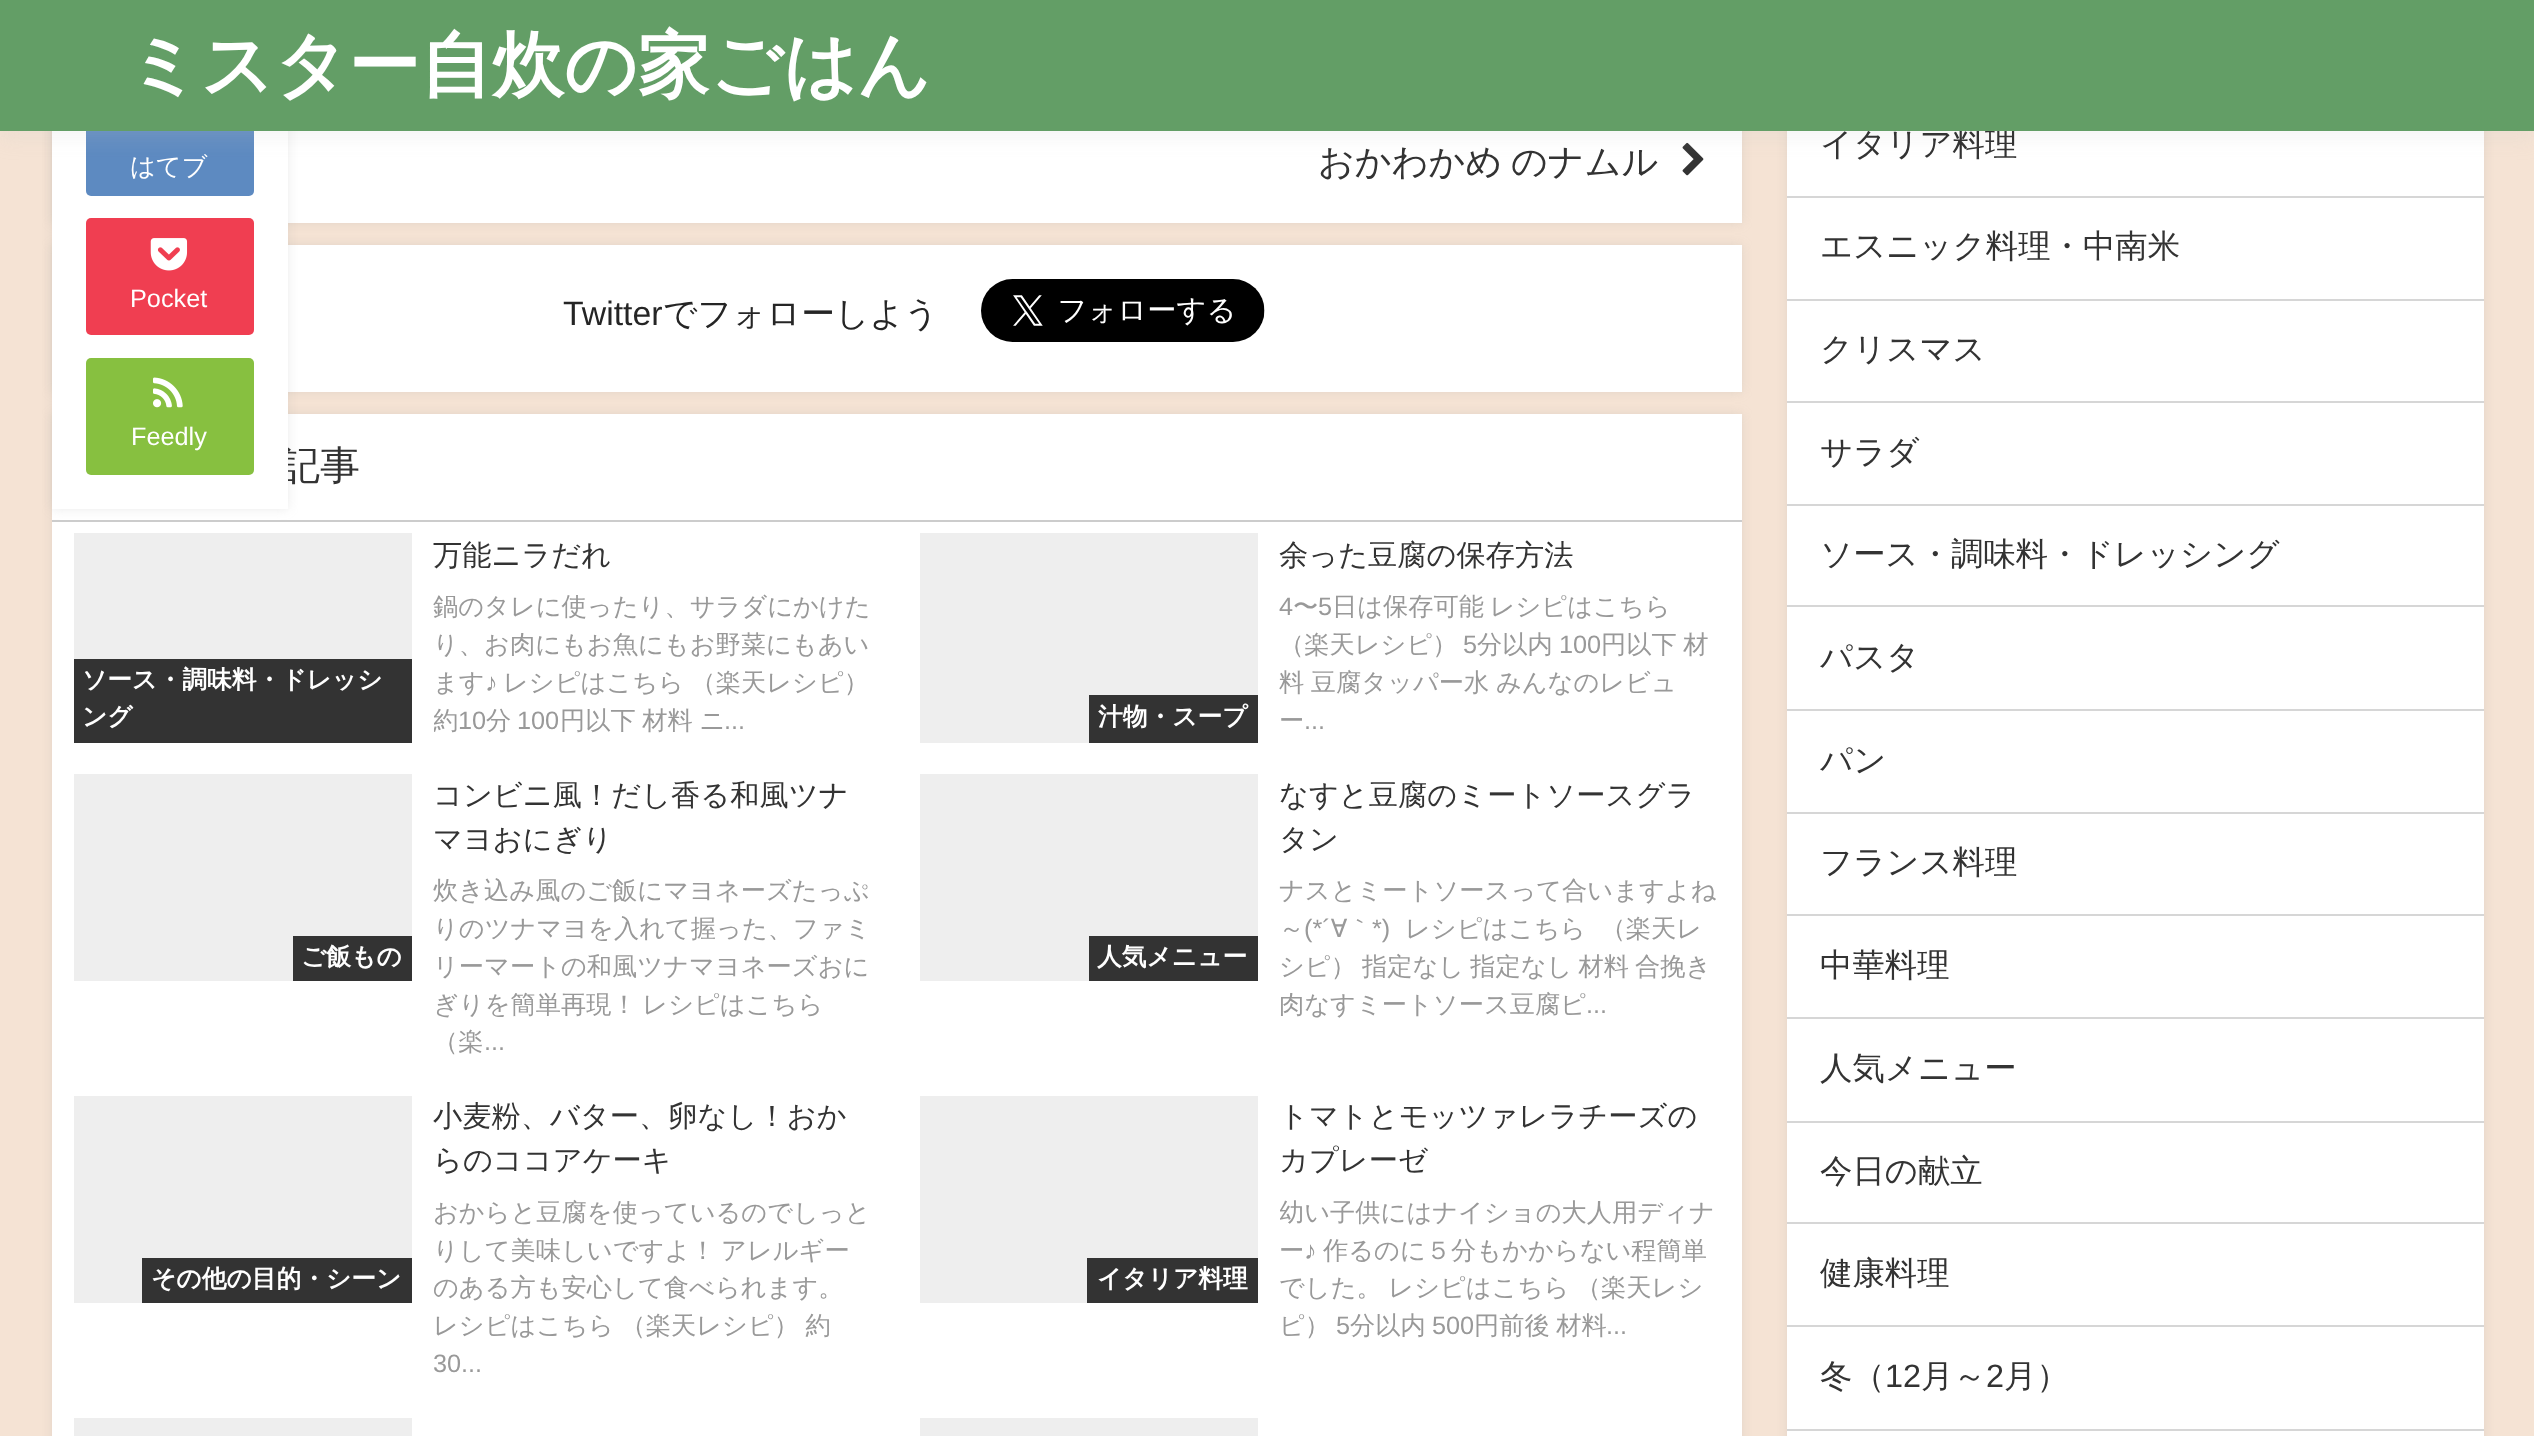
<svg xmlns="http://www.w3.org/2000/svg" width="2534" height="1436">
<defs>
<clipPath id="clip1"><rect x="434" y="533" width="441" height="219"/></clipPath>
<clipPath id="clip2"><rect x="1280" y="1096" width="439" height="261"/></clipPath>
</defs>
<rect width="100%" height="100%" fill="#f5e3d4"/>
<rect x="52" y="245" width="1690" height="147" fill="#96969633" filter="blur(5.5px)"/>
<rect x="288" y="245" width="1454" height="147" fill="#fff"/>
<rect x="52" y="-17" width="1690" height="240" fill="#96969633" filter="blur(5.5px)"/>
<rect x="288" y="131" width="1454" height="92" fill="#fff"/>
<rect x="52" y="414" width="1690" height="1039" fill="#96969633" filter="blur(5.5px)"/>
<rect x="52" y="414" width="1690" height="1022" fill="#fff"/>
<rect x="52" y="520" width="1690" height="2" fill="#ccc"/>
<rect x="52" y="-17" width="236" height="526" fill="#96969633" filter="blur(5.5px)"/>
<text x="280" y="479" style="font-family:WenQuanYi Zen Hei;font-size:40px;font-weight:500;fill:#333">記事</text>
<rect x="52" y="131" width="236" height="378" fill="#fff"/>
<rect x="86" y="79" width="168" height="117" rx="5" fill="#5d8ac1"/>
<image x="1682" y="142" width="22" height="34" href="media/4.png"/>
<rect x="1787" y="-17" width="697" height="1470" fill="#96969633" filter="blur(5.5px)"/>
<rect x="1787" y="131" width="697" height="1305" fill="#fff"/>
<rect y="7" width="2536" height="130" fill="#c8c8c833" filter="blur(11px)"/>
<text x="1820" y="155" style="font-family:WenQuanYi Zen Hei;font-size:32.4px;font-weight:500;fill:#333">イタリア料理</text>
<rect width="2534" height="131" fill="#639e66"/>
<text x="127" y="90" style="font-family:WenQuanYi Zen Hei;font-size:72px;font-weight:bold;fill:#fff">ミスター自炊の家ごはん</text>
<text x="130" y="175" style="font-family:WenQuanYi Zen Hei;font-size:25.25px;font-weight:500;fill:#fff">はてブ</text>
<rect x="86" y="218" width="168" height="117" rx="5" fill="#f03e51"/>
<image x="150" y="238" width="38" height="33" href="media/1.png"/>
<text x="130" y="307" style="font-family:Liberation Sans;font-size:25.25px;fill:#fff">Pocket</text>
<rect x="86" y="358" width="168" height="117" rx="5" fill="#87c040"/>
<image x="153" y="377" width="30" height="31" href="media/2.png"/>
<text x="131" y="445" style="font-family:Liberation Sans;font-size:25.25px;fill:#fff">Feedly</text>
<text x="563" y="325" style="font-family:Liberation Sans;font-size:33.75px;fill:#252525">Twitter</text>
<text x="663" y="325" style="font-family:WenQuanYi Zen Hei;font-size:33.75px;font-weight:500;fill:#252525">でフォローしよう</text>
<image x="981" y="279" width="284" height="63" href="media/3.png"/>
<text x="1318" y="174" word-spacing="-2" style="font-family:WenQuanYi Zen Hei;font-size:36px;font-weight:500;fill:#333">おかわかめ のナムル</text>
<rect x="74" y="533" width="338" height="126" fill="#eee"/>
<rect x="74" y="659" width="338" height="84" fill="#333"/>
<text x="82" y="688" style="font-family:WenQuanYi Zen Hei;font-size:24.75px;font-weight:bold;fill:#fff">ソース・調味料・ドレッシ</text>
<text x="82" y="725" style="font-family:WenQuanYi Zen Hei;font-size:24.75px;font-weight:bold;fill:#fff">ング</text>
<text x="433" y="565" style="font-family:WenQuanYi Zen Hei;font-size:29.25px;font-weight:500;fill:#333">万能ニラだれ</text>
<text x="433" y="615" style="font-family:WenQuanYi Zen Hei;font-size:25.25px;font-weight:500;fill:#999">鍋のタレに使ったり、サラダにかけた</text>
<text x="433" y="653" style="font-family:WenQuanYi Zen Hei;font-size:25.25px;font-weight:500;fill:#999">り、お肉にもお魚にもお野菜にもあい</text>
<text x="433" y="691" style="font-family:WenQuanYi Zen Hei;font-size:25.25px;font-weight:500;fill:#999">ます</text>
<text x="485" y="691" style="font-family:Liberation Sans;font-size:25.25px;fill:#999">♪</text>
<text x="503" y="691" word-spacing="-1" style="font-family:WenQuanYi Zen Hei;font-size:25.25px;font-weight:500;fill:#999">レシピはこちら （楽天レシピ）</text>
<g clip-path="url(#clip1)">
<text x="433" y="729" style="font-family:WenQuanYi Zen Hei;font-size:25.25px;font-weight:500;fill:#999">約</text>
</g>
<text x="458" y="729" style="font-family:Liberation Sans;font-size:25.25px;fill:#999">10</text>
<text x="486" y="729" style="font-family:WenQuanYi Zen Hei;font-size:25.25px;font-weight:500;fill:#999">分</text>
<text x="517" y="729" style="font-family:Liberation Sans;font-size:25.25px;fill:#999">100</text>
<text x="560" y="729" word-spacing="-1" style="font-family:WenQuanYi Zen Hei;font-size:25.25px;font-weight:500;fill:#999">円以下 材料 ニ</text>
<text x="724" y="729" style="font-family:Liberation Sans;font-size:25.25px;fill:#999">...</text>
<rect x="920" y="533" width="338" height="210" fill="#eee"/>
<rect x="1089" y="695" width="169" height="48" fill="#333"/>
<text x="1098" y="725" style="font-family:WenQuanYi Zen Hei;font-size:24.75px;font-weight:bold;fill:#fff">汁物・スープ</text>
<text x="1279" y="565" style="font-family:WenQuanYi Zen Hei;font-size:29.25px;font-weight:500;fill:#333">余った豆腐の保存方法</text>
<text x="1279" y="615" style="font-family:Liberation Sans;font-size:25.25px;fill:#999">4</text>
<text x="1293" y="615" style="font-family:WenQuanYi Zen Hei;font-size:25.25px;font-weight:500;fill:#999">〜</text>
<text x="1318" y="615" style="font-family:Liberation Sans;font-size:25.25px;fill:#999">5</text>
<text x="1332" y="615" word-spacing="-2" style="font-family:WenQuanYi Zen Hei;font-size:25.25px;font-weight:500;fill:#999">日は保存可能 レシピはこちら</text>
<text x="1279" y="653" style="font-family:WenQuanYi Zen Hei;font-size:25.25px;font-weight:500;fill:#999">（楽天レシピ）</text>
<text x="1463" y="653" style="font-family:Liberation Sans;font-size:25.25px;fill:#999">5</text>
<text x="1477" y="653" style="font-family:WenQuanYi Zen Hei;font-size:25.25px;font-weight:500;fill:#999">分以内</text>
<text x="1559" y="653" style="font-family:Liberation Sans;font-size:25.25px;fill:#999">100</text>
<text x="1601" y="653" word-spacing="-1" style="font-family:WenQuanYi Zen Hei;font-size:25.25px;font-weight:500;fill:#999">円以下 材</text>
<text x="1279" y="691" word-spacing="-1" style="font-family:WenQuanYi Zen Hei;font-size:25.25px;font-weight:500;fill:#999">料 豆腐タッパー水 みんなのレビュ</text>
<text x="1279" y="729" style="font-family:WenQuanYi Zen Hei;font-size:25.25px;font-weight:500;fill:#999">ー</text>
<text x="1304" y="729" style="font-family:Liberation Sans;font-size:25.25px;fill:#999">...</text>
<rect x="74" y="774" width="338" height="207" fill="#eee"/>
<rect x="293" y="936" width="119" height="45" fill="#333"/>
<text x="301" y="965" style="font-family:WenQuanYi Zen Hei;font-size:24.75px;font-weight:bold;fill:#fff">ご飯もの</text>
<text x="433" y="805" style="font-family:WenQuanYi Zen Hei;font-size:29.25px;font-weight:500;fill:#333">コンビニ風！だし香る和風ツナ</text>
<text x="433" y="849" style="font-family:WenQuanYi Zen Hei;font-size:29.25px;font-weight:500;fill:#333">マヨおにぎり</text>
<text x="433" y="899" style="font-family:WenQuanYi Zen Hei;font-size:25.25px;font-weight:500;fill:#999">炊き込み風のご飯にマヨネーズたっぷ</text>
<text x="433" y="937" style="font-family:WenQuanYi Zen Hei;font-size:25.25px;font-weight:500;fill:#999">りのツナマヨを入れて握った、ファミ</text>
<text x="433" y="975" style="font-family:WenQuanYi Zen Hei;font-size:25.25px;font-weight:500;fill:#999">リーマートの和風ツナマヨネーズおに</text>
<text x="433" y="1013" word-spacing="-2" style="font-family:WenQuanYi Zen Hei;font-size:25.25px;font-weight:500;fill:#999">ぎりを簡単再現！ レシピはこちら</text>
<text x="433" y="1050" style="font-family:WenQuanYi Zen Hei;font-size:25.25px;font-weight:500;fill:#999">（楽</text>
<text x="484" y="1050" style="font-family:Liberation Sans;font-size:25.25px;fill:#999">...</text>
<rect x="920" y="774" width="338" height="207" fill="#eee"/>
<rect x="1089" y="936" width="169" height="45" fill="#333"/>
<text x="1097" y="965" style="font-family:WenQuanYi Zen Hei;font-size:24.75px;font-weight:bold;fill:#fff">人気メニュー</text>
<text x="1279" y="805" style="font-family:WenQuanYi Zen Hei;font-size:29.25px;font-weight:500;fill:#333">なすと豆腐のミートソースグラ</text>
<text x="1279" y="849" style="font-family:WenQuanYi Zen Hei;font-size:29.25px;font-weight:500;fill:#333">タン</text>
<text x="1279" y="899" style="font-family:WenQuanYi Zen Hei;font-size:25.25px;font-weight:500;fill:#999">ナスとミートソースって合いますよね</text>
<text x="1279" y="937" style="font-family:WenQuanYi Zen Hei;font-size:25.25px;font-weight:500;fill:#999">～</text>
<text x="1304" y="937" style="font-family:Liberation Sans;font-size:25.25px;fill:#999">(*´</text>
<text x="1331" y="937" style="font-family:WenQuanYi Zen Hei;font-size:25.25px;font-weight:500;fill:#999">∀｀</text>
<text x="1372" y="937" style="font-family:Liberation Sans;font-size:25.25px;fill:#999">*)</text>
<text x="1405" y="937" word-spacing="7" style="font-family:WenQuanYi Zen Hei;font-size:25.25px;font-weight:500;fill:#999">レシピはこちら （楽天レ</text>
<text x="1279" y="975" word-spacing="-1.5" style="font-family:WenQuanYi Zen Hei;font-size:25.25px;font-weight:500;fill:#999">シピ） 指定なし 指定なし 材料 合挽き</text>
<text x="1279" y="1013" style="font-family:WenQuanYi Zen Hei;font-size:25.25px;font-weight:500;fill:#999">肉なすミートソース豆腐ピ</text>
<text x="1586" y="1013" style="font-family:Liberation Sans;font-size:25.25px;fill:#999">...</text>
<rect x="74" y="1096" width="338" height="207" fill="#eee"/>
<rect x="142" y="1258" width="270" height="45" fill="#333"/>
<text x="151" y="1287" style="font-family:WenQuanYi Zen Hei;font-size:24.75px;font-weight:bold;fill:#fff">その他の目的・シーン</text>
<text x="433" y="1126" style="font-family:WenQuanYi Zen Hei;font-size:29.25px;font-weight:500;fill:#333">小麦粉、バター、卵なし！おか</text>
<text x="433" y="1170" style="font-family:WenQuanYi Zen Hei;font-size:29.25px;font-weight:500;fill:#333">らのココアケーキ</text>
<text x="433" y="1221" style="font-family:WenQuanYi Zen Hei;font-size:25.25px;font-weight:500;fill:#999">おからと豆腐を使っているのでしっと</text>
<text x="433" y="1259" word-spacing="-2" style="font-family:WenQuanYi Zen Hei;font-size:25.25px;font-weight:500;fill:#999">りして美味しいですよ！ アレルギー</text>
<text x="433" y="1296" style="font-family:WenQuanYi Zen Hei;font-size:25.25px;font-weight:500;fill:#999">のある方も安心して食べられます。</text>
<text x="433" y="1334" word-spacing="-1" style="font-family:WenQuanYi Zen Hei;font-size:25.25px;font-weight:500;fill:#999">レシピはこちら （楽天レシピ） 約</text>
<text x="433" y="1372" style="font-family:Liberation Sans;font-size:25.25px;fill:#999">30...</text>
<rect x="920" y="1096" width="338" height="207" fill="#eee"/>
<rect x="1087" y="1258" width="171" height="45" fill="#333"/>
<text x="1097" y="1287" style="font-family:WenQuanYi Zen Hei;font-size:24.75px;font-weight:bold;fill:#fff">イタリア料理</text>
<text x="1279" y="1126" style="font-family:WenQuanYi Zen Hei;font-size:29.25px;font-weight:500;fill:#333">トマトとモッツァレラチーズの</text>
<text x="1279" y="1170" style="font-family:WenQuanYi Zen Hei;font-size:29.25px;font-weight:500;fill:#333">カプレーゼ</text>
<g clip-path="url(#clip2)">
<text x="1279" y="1221" style="font-family:WenQuanYi Zen Hei;font-size:25.25px;font-weight:500;fill:#999">幼い子供にはナイショの大人用ディナ</text>
</g>
<text x="1279" y="1259" style="font-family:WenQuanYi Zen Hei;font-size:25.25px;font-weight:500;fill:#999">ー</text>
<text x="1304" y="1259" style="font-family:Liberation Sans;font-size:25.25px;fill:#999">♪</text>
<text x="1323" y="1259" style="font-family:WenQuanYi Zen Hei;font-size:25.25px;font-weight:500;fill:#999">作るのに５分もかからない程簡単</text>
<text x="1279" y="1296" word-spacing="-1" style="font-family:WenQuanYi Zen Hei;font-size:25.25px;font-weight:500;fill:#999">でした。 レシピはこちら （楽天レシ</text>
<text x="1279" y="1334" style="font-family:WenQuanYi Zen Hei;font-size:25.25px;font-weight:500;fill:#999">ピ）</text>
<text x="1336" y="1334" style="font-family:Liberation Sans;font-size:25.25px;fill:#999">5</text>
<text x="1350" y="1334" style="font-family:WenQuanYi Zen Hei;font-size:25.25px;font-weight:500;fill:#999">分以内</text>
<text x="1432" y="1334" style="font-family:Liberation Sans;font-size:25.25px;fill:#999">500</text>
<text x="1474" y="1334" word-spacing="-1" style="font-family:WenQuanYi Zen Hei;font-size:25.25px;font-weight:500;fill:#999">円前後 材料</text>
<text x="1606" y="1334" style="font-family:Liberation Sans;font-size:25.25px;fill:#999">...</text>
<rect x="74" y="1418" width="338" height="18" fill="#eee"/>
<rect x="920" y="1418" width="338" height="18" fill="#eee"/>
<rect x="1787" y="196" width="697" height="2" fill="#d6d6d6"/>
<rect x="1787" y="299" width="697" height="2" fill="#d6d6d6"/>
<text x="1820" y="257" style="font-family:WenQuanYi Zen Hei;font-size:32.4px;font-weight:500;fill:#333">エスニック料理・中南米</text>
<rect x="1787" y="401" width="697" height="2" fill="#d6d6d6"/>
<text x="1820" y="360" style="font-family:WenQuanYi Zen Hei;font-size:32.4px;font-weight:500;fill:#333">クリスマス</text>
<rect x="1787" y="504" width="697" height="2" fill="#d6d6d6"/>
<text x="1820" y="463" style="font-family:WenQuanYi Zen Hei;font-size:32.4px;font-weight:500;fill:#333">サラダ</text>
<rect x="1787" y="605" width="697" height="2" fill="#d6d6d6"/>
<text x="1820" y="565" style="font-family:WenQuanYi Zen Hei;font-size:32.4px;font-weight:500;fill:#333">ソース・調味料・ドレッシング</text>
<rect x="1787" y="709" width="697" height="2" fill="#d6d6d6"/>
<text x="1820" y="668" style="font-family:WenQuanYi Zen Hei;font-size:32.4px;font-weight:500;fill:#333">パスタ</text>
<rect x="1787" y="812" width="697" height="2" fill="#d6d6d6"/>
<text x="1820" y="771" style="font-family:WenQuanYi Zen Hei;font-size:32.4px;font-weight:500;fill:#333">パン</text>
<rect x="1787" y="914" width="697" height="2" fill="#d6d6d6"/>
<text x="1820" y="873" style="font-family:WenQuanYi Zen Hei;font-size:32.4px;font-weight:500;fill:#333">フランス料理</text>
<rect x="1787" y="1017" width="697" height="2" fill="#d6d6d6"/>
<text x="1820" y="976" style="font-family:WenQuanYi Zen Hei;font-size:32.4px;font-weight:500;fill:#333">中華料理</text>
<rect x="1787" y="1121" width="697" height="2" fill="#d6d6d6"/>
<text x="1820" y="1079" style="font-family:WenQuanYi Zen Hei;font-size:32.4px;font-weight:500;fill:#333">人気メニュー</text>
<rect x="1787" y="1222" width="697" height="2" fill="#d6d6d6"/>
<text x="1820" y="1182" style="font-family:WenQuanYi Zen Hei;font-size:32.4px;font-weight:500;fill:#333">今日の献立</text>
<rect x="1787" y="1325" width="697" height="2" fill="#d6d6d6"/>
<text x="1820" y="1284" style="font-family:WenQuanYi Zen Hei;font-size:32.4px;font-weight:500;fill:#333">健康料理</text>
<rect x="1787" y="1429" width="697" height="2" fill="#d6d6d6"/>
<text x="1820" y="1387" style="font-family:WenQuanYi Zen Hei;font-size:32.4px;font-weight:500;fill:#333">冬（</text>
<text x="1885" y="1387" style="font-family:Liberation Sans;font-size:32.4px;fill:#333">12</text>
<text x="1921" y="1387" style="font-family:WenQuanYi Zen Hei;font-size:32.4px;font-weight:500;fill:#333">月～</text>
<text x="1986" y="1387" style="font-family:Liberation Sans;font-size:32.4px;fill:#333">2</text>
<text x="2004" y="1387" style="font-family:WenQuanYi Zen Hei;font-size:32.4px;font-weight:500;fill:#333">月）</text>
</svg>
